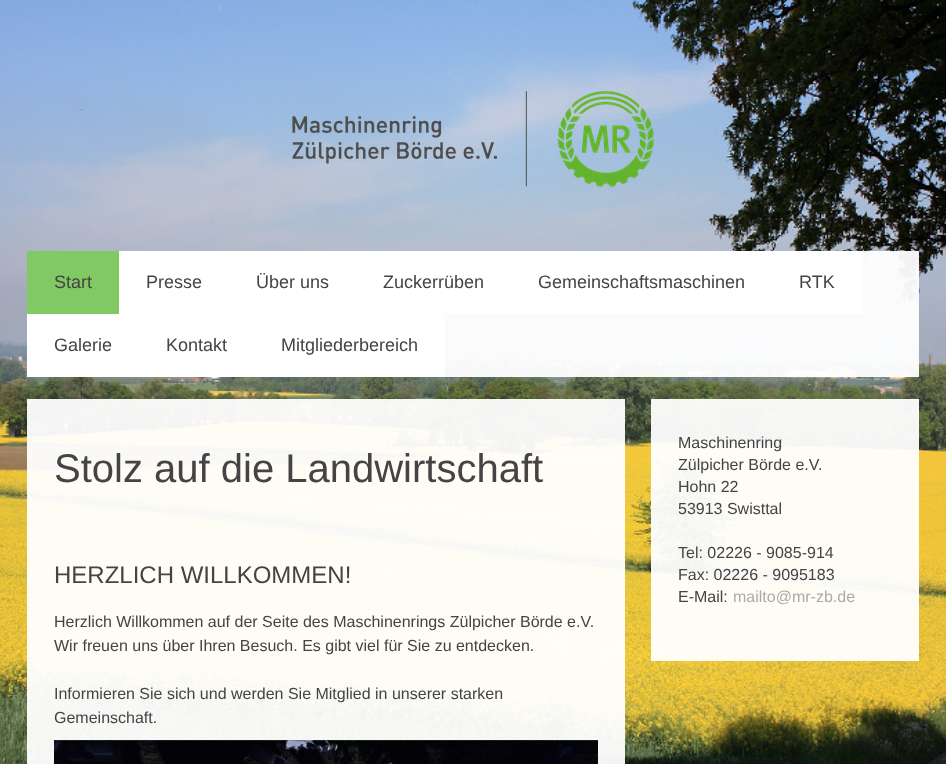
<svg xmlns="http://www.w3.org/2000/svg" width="946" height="764">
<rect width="100%" height="100%" fill="#fff"/>
<image x="0" y="0" width="946" height="764" href="media/1.png"/>
<image x="292" y="91" width="362" height="96" href="media/2.png"/>
<rect x="27" y="251" width="892" height="126" fill="#fffffff2"/>
<rect x="27" y="251" width="92" height="63" fill="#81c963"/>
<text x="54" y="288" style="font-family:Liberation Sans;font-size:18px;fill:#444">Start</text>
<rect x="119" y="251" width="392" height="63" fill="#fff"/>
<text x="146" y="288" style="font-family:Liberation Sans;font-size:18px;fill:#444">Presse</text>
<text x="256" y="288" style="font-family:Liberation Sans;font-size:18px;fill:#444">Über uns</text>
<text x="383" y="288" style="font-family:Liberation Sans;font-size:18px;fill:#444">Zuckerrüben</text>
<rect x="511" y="251" width="261" height="63" fill="#fffffff2"/>
<text x="538" y="288" style="font-family:Liberation Sans;font-size:18px;fill:#444">Gemeinschaftsmaschinen</text>
<rect x="772" y="251" width="90" height="63" fill="#fffffff2"/>
<text x="799" y="288" style="font-family:Liberation Sans;font-size:18px;fill:#444">RTK</text>
<rect x="27" y="314" width="112" height="63" fill="#fffffff2"/>
<text x="54" y="351" style="font-family:Liberation Sans;font-size:18px;fill:#444">Galerie</text>
<rect x="139" y="314" width="115" height="63" fill="#fffffff2"/>
<text x="166" y="351" style="font-family:Liberation Sans;font-size:18px;fill:#444">Kontakt</text>
<rect x="254" y="314" width="191" height="63" fill="#fffffff2"/>
<text x="281" y="351" style="font-family:Liberation Sans;font-size:18px;fill:#444">Mitgliederbereich</text>
<rect x="27" y="399" width="598" height="365" fill="#fffffff2"/>
<text x="54" y="482" style="font-family:Liberation Sans;font-size:40px;fill:#444">Stolz auf die Landwirtschaft</text>
<text x="54" y="583" style="font-family:Liberation Sans;font-size:24px;fill:#444">HERZLICH WILLKOMMEN!</text>
<text x="54" y="627" style="font-family:Liberation Sans;font-size:16px;fill:#444">Herzlich Willkommen auf der Seite des Maschinenrings Zülpicher Börde e.V.</text>
<text x="54" y="651" style="font-family:Liberation Sans;font-size:16px;fill:#444">Wir freuen uns über Ihren Besuch. Es gibt viel für Sie zu entdecken.</text>
<text x="54" y="699" style="font-family:Liberation Sans;font-size:16px;fill:#444">Informieren Sie sich und werden Sie Mitglied in unserer starken</text>
<text x="54" y="723" style="font-family:Liberation Sans;font-size:16px;fill:#444">Gemeinschaft.</text>
<image x="54" y="740" width="544" height="24" href="media/3.png"/>
<rect x="651" y="399" width="268" height="262" fill="#fffffff2"/>
<text x="678" y="448" style="font-family:Liberation Sans;font-size:16px;fill:#444">Maschinenring</text>
<text x="678" y="470" style="font-family:Liberation Sans;font-size:16px;fill:#444">Zülpicher Börde e.V.</text>
<text x="678" y="492" style="font-family:Liberation Sans;font-size:16px;fill:#444">Hohn 22</text>
<text x="678" y="514" style="font-family:Liberation Sans;font-size:16px;fill:#444">53913 Swisttal</text>
<text x="678" y="558" style="font-family:Liberation Sans;font-size:16px;fill:#444">Tel: 02226 - 9085-914</text>
<text x="678" y="580" style="font-family:Liberation Sans;font-size:16px;fill:#444">Fax: 02226 - 9095183</text>
<text x="678" y="602" style="font-family:Liberation Sans;font-size:16px;fill:#444">E-Mail:</text>
<text x="733" y="602" style="font-family:Liberation Sans;font-size:16px;fill:#ababab">mailto@mr-zb.de</text>
</svg>
